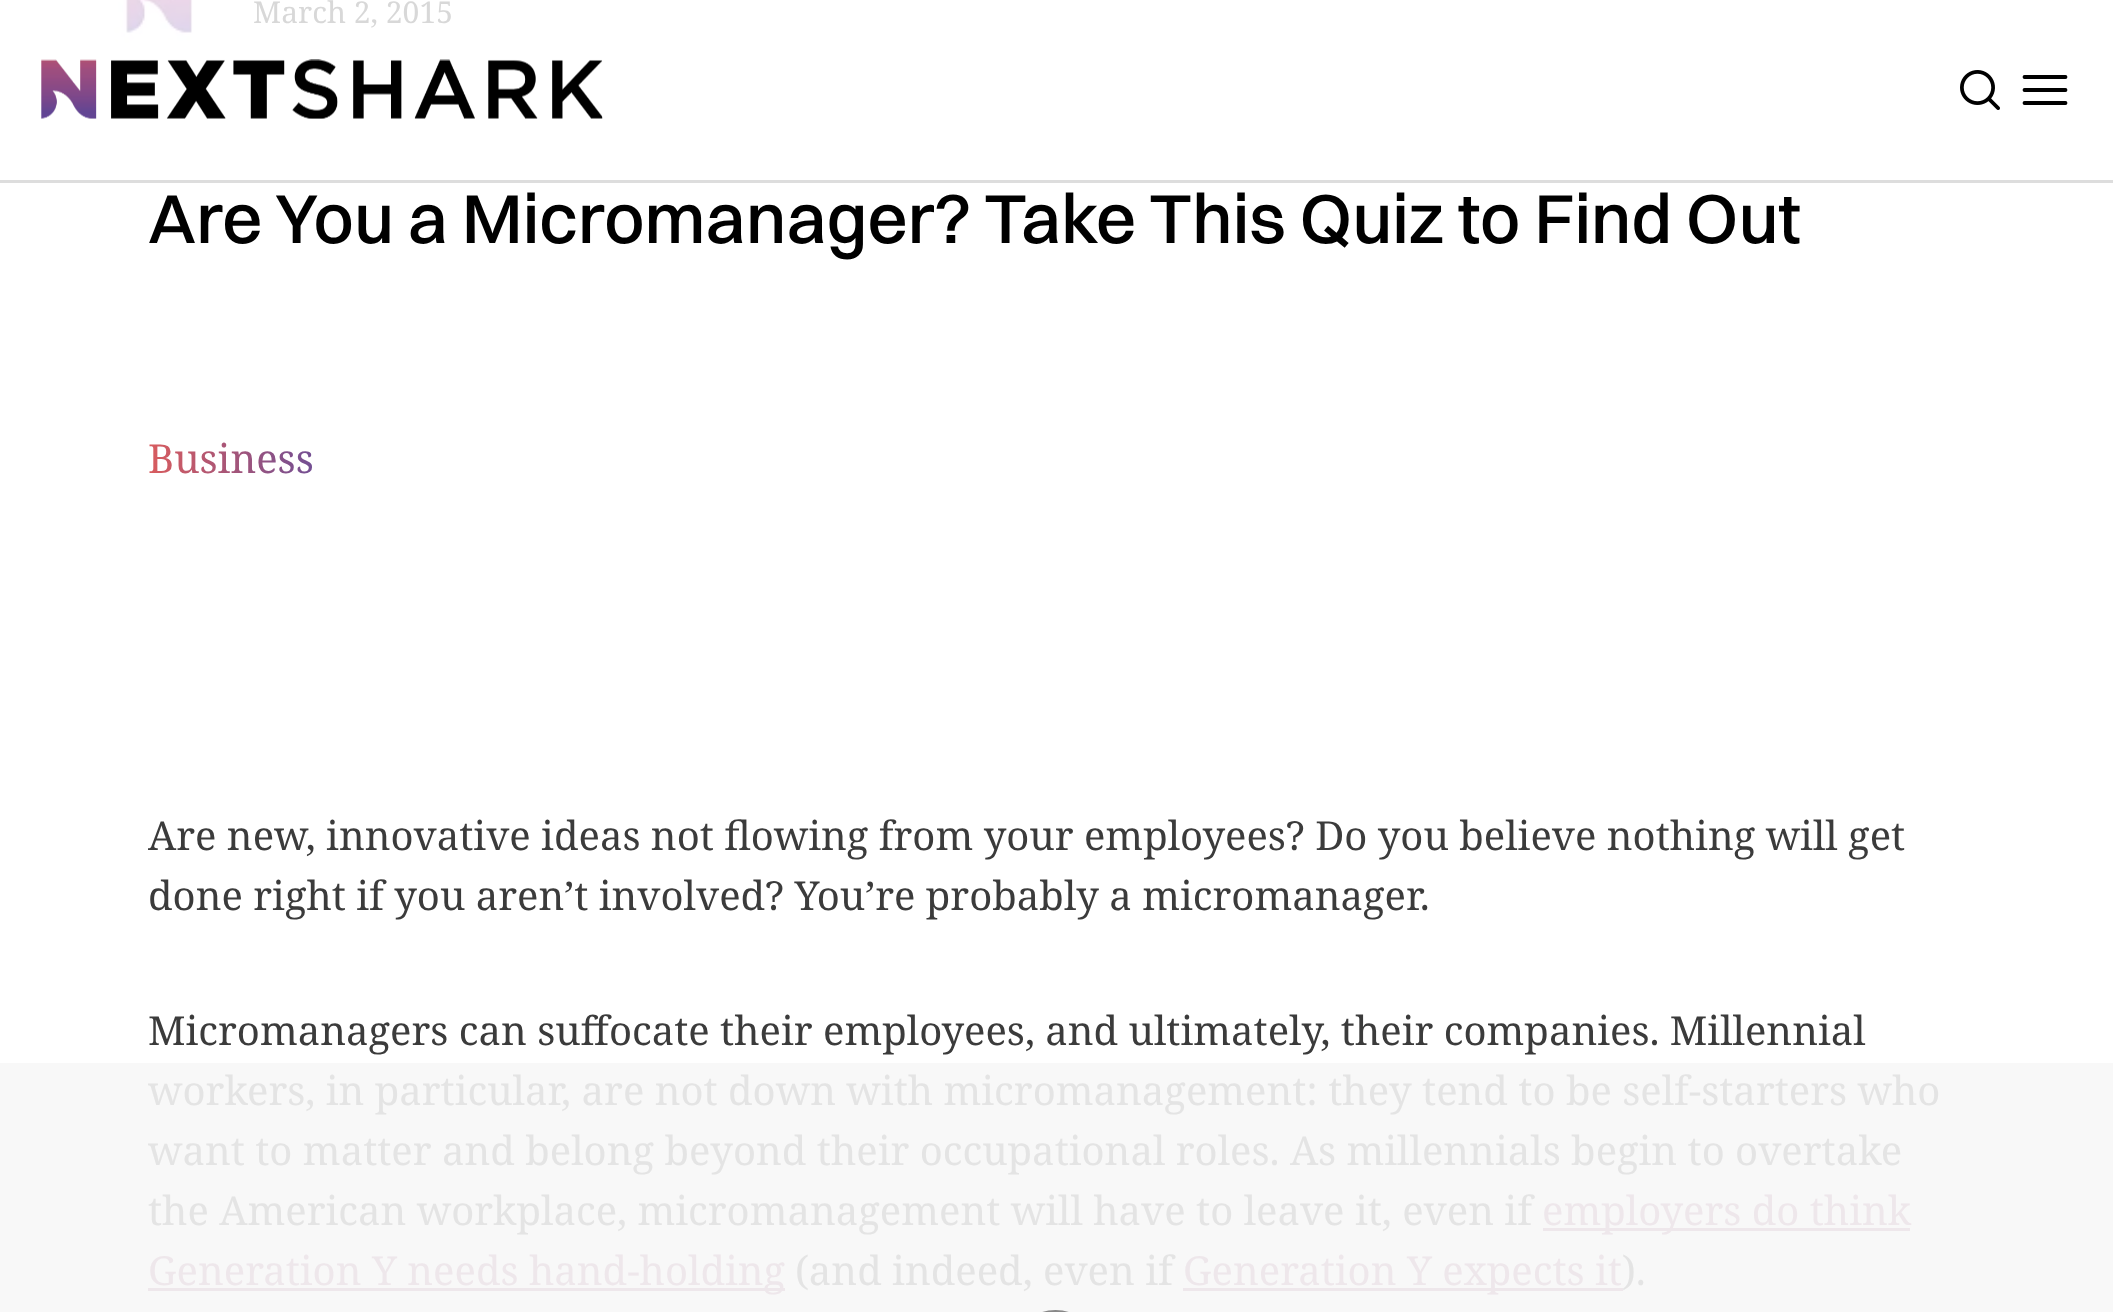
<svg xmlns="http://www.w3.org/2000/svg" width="2113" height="1312">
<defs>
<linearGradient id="g1" gradientUnits="userSpaceOnUse" x1="148" y1="458" x2="313" y2="458"><stop offset="0" stop-color="#d95c5e"/><stop offset="1" stop-color="#734f93"/></linearGradient>
</defs>
<rect width="100%" height="100%" fill="#fff"/>
<rect y="1063" width="2113" height="249" fill="#f8f8f8"/>
<image x="114" y="0" width="79" height="43" href="media/1.png"/>
<text x="253" y="23" style="font-family:Noto Serif;font-size:30px;fill:#d8d8d8">March 2, 2015</text>
<text x="148" y="243" style="font-family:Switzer;font-size:70px;font-weight:500;fill:#000">Are You a Micromanager? Take This Quiz to Find Out</text>
<text x="148" y="473" style="font-family:Noto Serif;font-size:40px;fill:url(#g1)">Business</text>
<text x="148" y="850" style="font-family:Noto Serif;font-size:40px;fill:#3b3b3b">Are new, innovative ideas not flowing from your employees? Do you believe nothing will get</text>
<text x="148" y="910" style="font-family:Noto Serif;font-size:40px;fill:#3b3b3b">done right if you aren’t involved? You’re probably a micromanager.</text>
<text x="148" y="1045" style="font-family:Noto Serif;font-size:40px;fill:#3b3b3b">Micromanagers can suffocate their employees, and ultimately, their companies. Millennial</text>
<text x="148" y="1105" style="font-family:Noto Serif;font-size:40px;fill:#e4e4e4">workers, in particular, are not down with micromanagement: they tend to be self-starters who</text>
<text x="148" y="1165" style="font-family:Noto Serif;font-size:40px;fill:#e4e4e4">want to matter and belong beyond their occupational roles. As millennials begin to overtake</text>
<text x="148" y="1225" style="font-family:Noto Serif;font-size:40px;fill:#e4e4e4">the American workplace, micromanagement will have to leave it, even if</text>
<rect x="1543" y="1228" width="367" height="3" fill="#eee7eb"/>
<text x="1542" y="1225" style="font-family:Noto Serif;font-size:40px;fill:#eee7eb">employers do think</text>
<rect x="148" y="1288" width="637" height="3" fill="#eee7eb"/>
<text x="148" y="1285" style="font-family:Noto Serif;font-size:40px;fill:#eee7eb">Generation Y needs hand-holding</text>
<text x="795" y="1285" style="font-family:Noto Serif;font-size:40px;fill:#e4e4e4">(and indeed, even if</text>
<rect x="1183" y="1288" width="440" height="3" fill="#eee7eb"/>
<text x="1183" y="1285" style="font-family:Noto Serif;font-size:40px;fill:#eee7eb">Generation Y expects it</text>
<text x="1622" y="1285" style="font-family:Noto Serif;font-size:40px;fill:#e4e4e4">).</text>
<rect y="180" width="2113" height="3" fill="#ddd"/>
<image x="41" y="59" width="562" height="60" href="media/2.png"/>
<image x="1960" y="70" width="40" height="40" href="media/3.png"/>
<path d="M2024.5 77h41m-41 13h41m-41 13h41" fill="none" stroke="#000" stroke-width="3.8" stroke-linecap="round" stroke-linejoin="round"/>
<rect x="1029.5" y="1311.5" width="52" height="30" rx="26" fill="none" stroke="#888" stroke-width="3"/>
</svg>
